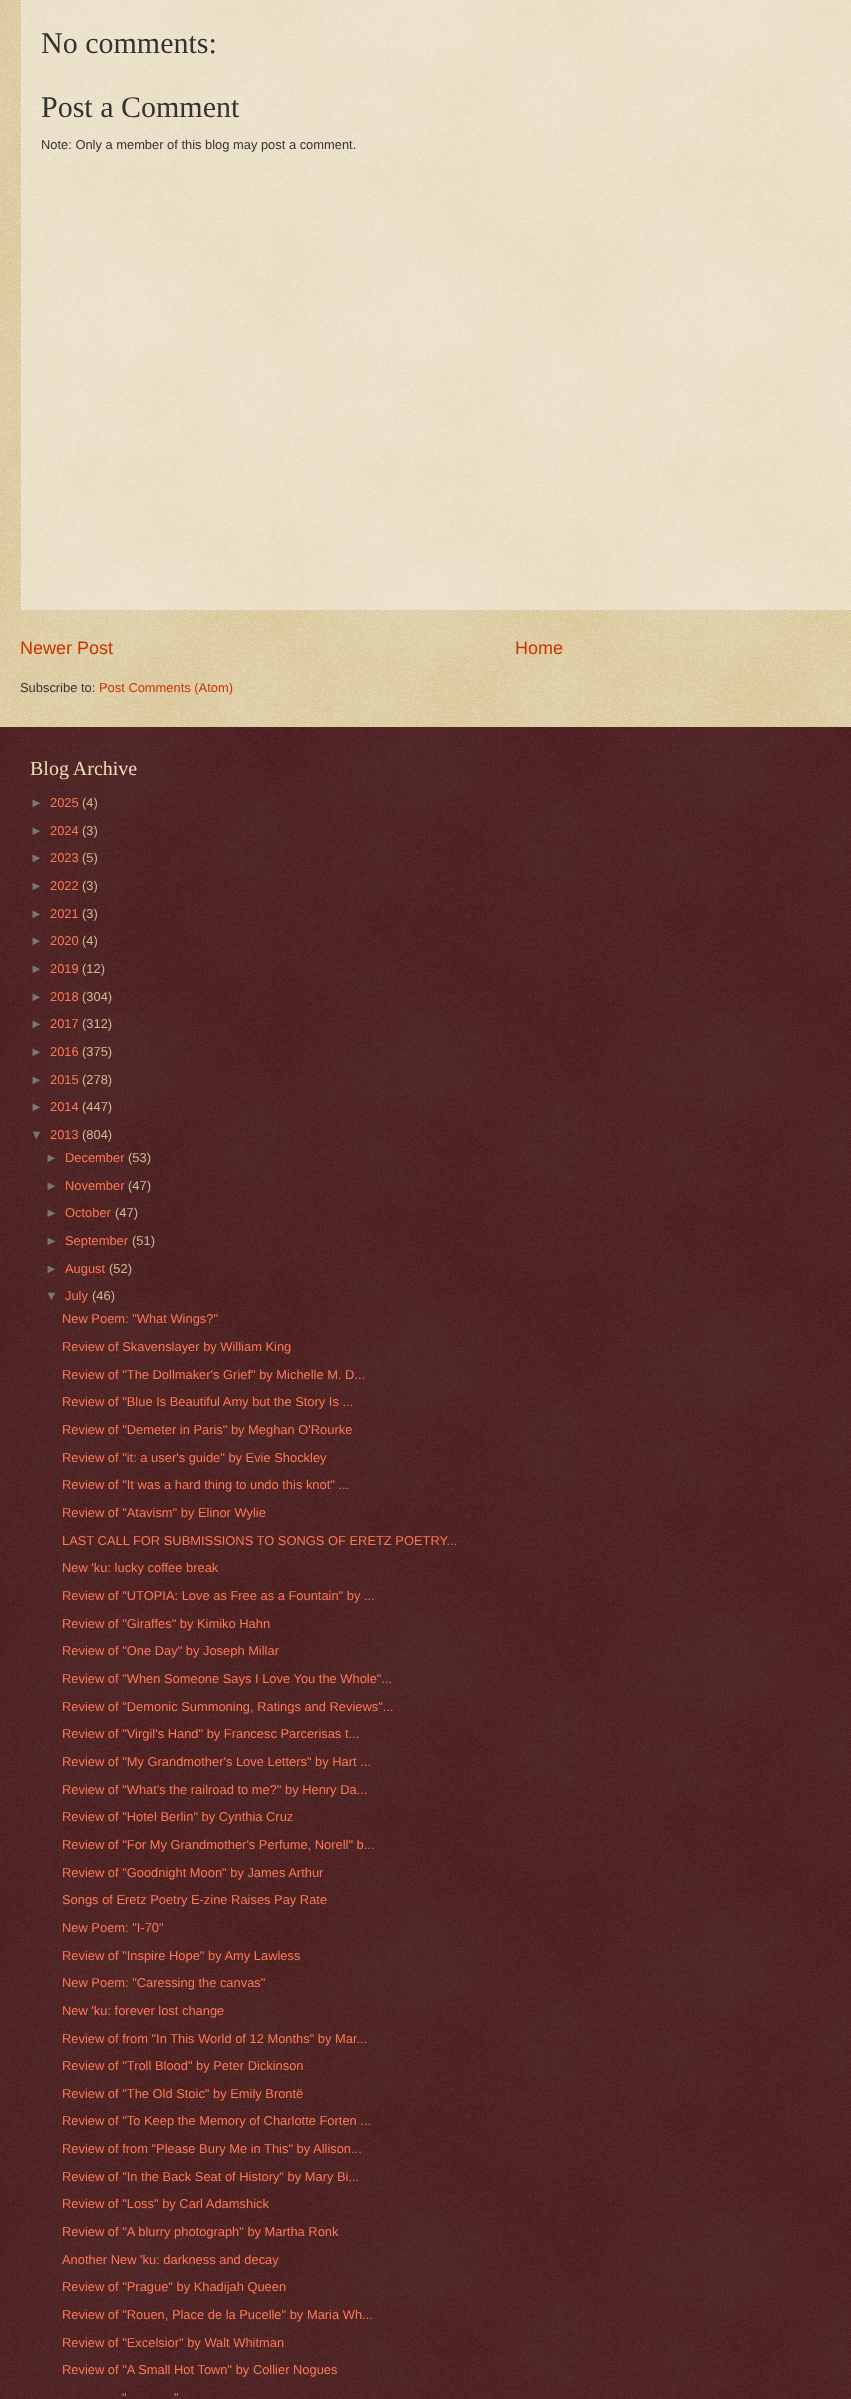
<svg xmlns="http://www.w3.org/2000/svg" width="851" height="2399">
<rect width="100%" height="100%" fill="#c0a154"/>
<image x="0" y="0" width="851" height="727" href="media/1.png"/>
<rect x="20" width="831" height="611" fill="#ffffff66"/>
<path d="M20 610.5h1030" fill="none" stroke="#cb9" stroke-dasharray="1 1"/>
<path d="M20.5-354v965" fill="none" stroke="#cb9" stroke-dasharray="1 1"/>
<text x="41" y="53" style="font-family:Liberation Serif;font-size:30px;fill:#333">No comments:</text>
<text x="41" y="117" style="font-family:Liberation Serif;font-size:30px;fill:#333">Post a Comment</text>
<text x="41" y="149" style="font-family:Liberation Sans;font-size:12.9px;fill:#333">Note: Only a member of this blog may post a comment.</text>
<text x="20" y="654" style="font-family:Liberation Sans;font-size:18px;fill:#c30">Newer Post</text>
<text x="515" y="654" style="font-family:Liberation Sans;font-size:18px;fill:#c30">Home</text>
<text x="20" y="692" style="font-family:Liberation Sans;font-size:12.9px;fill:#333">Subscribe to:</text>
<text x="99" y="692" style="font-family:Liberation Sans;font-size:12.9px;fill:#c30">Post Comments (Atom)</text>
<rect y="727" width="851" height="1672" fill="#300"/>
<image x="0" y="727" width="851" height="1672" href="media/2.png"/>
<text x="30" y="775" style="font-family:Liberation Serif;font-size:20px;fill:#edb">Blog Archive</text>
<text x="30" y="807" style="font-family:Liberation Sans;font-size:12.9px;fill:#777">►</text>
<text x="50" y="807" style="font-family:Liberation Sans;font-size:12.9px;fill:#f75">2025</text>
<text x="82" y="807" style="font-family:Liberation Sans;font-size:12.9px;fill:#cb9">(4)</text>
<text x="30" y="835" style="font-family:Liberation Sans;font-size:12.9px;fill:#777">►</text>
<text x="50" y="835" style="font-family:Liberation Sans;font-size:12.9px;fill:#f75">2024</text>
<text x="82" y="835" style="font-family:Liberation Sans;font-size:12.9px;fill:#cb9">(3)</text>
<text x="30" y="862" style="font-family:Liberation Sans;font-size:12.9px;fill:#777">►</text>
<text x="50" y="862" style="font-family:Liberation Sans;font-size:12.9px;fill:#f75">2023</text>
<text x="82" y="862" style="font-family:Liberation Sans;font-size:12.9px;fill:#cb9">(5)</text>
<text x="30" y="890" style="font-family:Liberation Sans;font-size:12.9px;fill:#777">►</text>
<text x="50" y="890" style="font-family:Liberation Sans;font-size:12.9px;fill:#f75">2022</text>
<text x="82" y="890" style="font-family:Liberation Sans;font-size:12.9px;fill:#cb9">(3)</text>
<text x="30" y="918" style="font-family:Liberation Sans;font-size:12.9px;fill:#777">►</text>
<text x="50" y="918" style="font-family:Liberation Sans;font-size:12.9px;fill:#f75">2021</text>
<text x="82" y="918" style="font-family:Liberation Sans;font-size:12.9px;fill:#cb9">(3)</text>
<text x="30" y="945" style="font-family:Liberation Sans;font-size:12.9px;fill:#777">►</text>
<text x="50" y="945" style="font-family:Liberation Sans;font-size:12.9px;fill:#f75">2020</text>
<text x="82" y="945" style="font-family:Liberation Sans;font-size:12.9px;fill:#cb9">(4)</text>
<text x="30" y="973" style="font-family:Liberation Sans;font-size:12.9px;fill:#777">►</text>
<text x="50" y="973" style="font-family:Liberation Sans;font-size:12.9px;fill:#f75">2019</text>
<text x="82" y="973" style="font-family:Liberation Sans;font-size:12.9px;fill:#cb9">(12)</text>
<text x="30" y="1001" style="font-family:Liberation Sans;font-size:12.9px;fill:#777">►</text>
<text x="50" y="1001" style="font-family:Liberation Sans;font-size:12.9px;fill:#f75">2018</text>
<text x="82" y="1001" style="font-family:Liberation Sans;font-size:12.9px;fill:#cb9">(304)</text>
<text x="30" y="1028" style="font-family:Liberation Sans;font-size:12.9px;fill:#777">►</text>
<text x="50" y="1028" style="font-family:Liberation Sans;font-size:12.9px;fill:#f75">2017</text>
<text x="82" y="1028" style="font-family:Liberation Sans;font-size:12.9px;fill:#cb9">(312)</text>
<text x="30" y="1056" style="font-family:Liberation Sans;font-size:12.9px;fill:#777">►</text>
<text x="50" y="1056" style="font-family:Liberation Sans;font-size:12.9px;fill:#f75">2016</text>
<text x="82" y="1056" style="font-family:Liberation Sans;font-size:12.9px;fill:#cb9">(375)</text>
<text x="30" y="1084" style="font-family:Liberation Sans;font-size:12.9px;fill:#777">►</text>
<text x="50" y="1084" style="font-family:Liberation Sans;font-size:12.9px;fill:#f75">2015</text>
<text x="82" y="1084" style="font-family:Liberation Sans;font-size:12.9px;fill:#cb9">(278)</text>
<text x="30" y="1111" style="font-family:Liberation Sans;font-size:12.9px;fill:#777">►</text>
<text x="50" y="1111" style="font-family:Liberation Sans;font-size:12.9px;fill:#f75">2014</text>
<text x="82" y="1111" style="font-family:Liberation Sans;font-size:12.9px;fill:#cb9">(447)</text>
<text x="30" y="1139" style="font-family:Liberation Sans;font-size:12.9px;fill:#777">▼</text>
<text x="50" y="1139" style="font-family:Liberation Sans;font-size:12.9px;fill:#f75">2013</text>
<text x="82" y="1139" style="font-family:Liberation Sans;font-size:12.9px;fill:#cb9">(804)</text>
<text x="45" y="1162" style="font-family:Liberation Sans;font-size:12.9px;fill:#777">►</text>
<text x="65" y="1162" style="font-family:Liberation Sans;font-size:12.9px;fill:#f75">December</text>
<text x="128" y="1162" style="font-family:Liberation Sans;font-size:12.9px;fill:#cb9">(53)</text>
<text x="45" y="1190" style="font-family:Liberation Sans;font-size:12.9px;fill:#777">►</text>
<text x="65" y="1190" style="font-family:Liberation Sans;font-size:12.9px;fill:#f75">November</text>
<text x="128" y="1190" style="font-family:Liberation Sans;font-size:12.9px;fill:#cb9">(47)</text>
<text x="45" y="1217" style="font-family:Liberation Sans;font-size:12.9px;fill:#777">►</text>
<text x="65" y="1217" style="font-family:Liberation Sans;font-size:12.9px;fill:#f75">October</text>
<text x="115" y="1217" style="font-family:Liberation Sans;font-size:12.9px;fill:#cb9">(47)</text>
<text x="45" y="1245" style="font-family:Liberation Sans;font-size:12.9px;fill:#777">►</text>
<text x="65" y="1245" style="font-family:Liberation Sans;font-size:12.9px;fill:#f75">September</text>
<text x="132" y="1245" style="font-family:Liberation Sans;font-size:12.9px;fill:#cb9">(51)</text>
<text x="45" y="1273" style="font-family:Liberation Sans;font-size:12.9px;fill:#777">►</text>
<text x="65" y="1273" style="font-family:Liberation Sans;font-size:12.9px;fill:#f75">August</text>
<text x="109" y="1273" style="font-family:Liberation Sans;font-size:12.9px;fill:#cb9">(52)</text>
<text x="45" y="1300" style="font-family:Liberation Sans;font-size:12.9px;fill:#777">▼</text>
<text x="65" y="1300" style="font-family:Liberation Sans;font-size:12.9px;fill:#f75">July</text>
<text x="92" y="1300" style="font-family:Liberation Sans;font-size:12.9px;fill:#cb9">(46)</text>
<text x="62" y="1323" style="font-family:Liberation Sans;font-size:12.9px;fill:#f75">New Poem: "What Wings?"</text>
<text x="62" y="1351" style="font-family:Liberation Sans;font-size:12.9px;fill:#f75">Review of Skavenslayer by William King</text>
<text x="62" y="1379" style="font-family:Liberation Sans;font-size:12.9px;fill:#f75">Review of "The Dollmaker's Grief" by Michelle M. D...</text>
<text x="62" y="1406" style="font-family:Liberation Sans;font-size:12.9px;fill:#f75">Review of "Blue Is Beautiful Amy but the Story Is ...</text>
<text x="62" y="1434" style="font-family:Liberation Sans;font-size:12.9px;fill:#f75">Review of "Demeter in Paris" by Meghan O'Rourke</text>
<text x="62" y="1462" style="font-family:Liberation Sans;font-size:12.9px;fill:#f75">Review of "it: a user's guide" by Evie Shockley</text>
<text x="62" y="1489" style="font-family:Liberation Sans;font-size:12.9px;fill:#f75">Review of "It was a hard thing to undo this knot" ...</text>
<text x="62" y="1517" style="font-family:Liberation Sans;font-size:12.9px;fill:#f75">Review of "Atavism" by Elinor Wylie</text>
<text x="62" y="1545" style="font-family:Liberation Sans;font-size:12.9px;fill:#f75">LAST CALL FOR SUBMISSIONS TO SONGS OF ERETZ POETRY...</text>
<text x="62" y="1572" style="font-family:Liberation Sans;font-size:12.9px;fill:#f75">New 'ku: lucky coffee break</text>
<text x="62" y="1600" style="font-family:Liberation Sans;font-size:12.9px;fill:#f75">Review of "UTOPIA: Love as Free as a Fountain" by ...</text>
<text x="62" y="1628" style="font-family:Liberation Sans;font-size:12.9px;fill:#f75">Review of "Giraffes" by Kimiko Hahn</text>
<text x="62" y="1655" style="font-family:Liberation Sans;font-size:12.9px;fill:#f75">Review of "One Day" by Joseph Millar</text>
<text x="62" y="1683" style="font-family:Liberation Sans;font-size:12.9px;fill:#f75">Review of "When Someone Says I Love You the Whole"...</text>
<text x="62" y="1711" style="font-family:Liberation Sans;font-size:12.9px;fill:#f75">Review of "Demonic Summoning, Ratings and Reviews"...</text>
<text x="62" y="1738" style="font-family:Liberation Sans;font-size:12.9px;fill:#f75">Review of "Virgil's Hand" by Francesc Parcerisas t...</text>
<text x="62" y="1766" style="font-family:Liberation Sans;font-size:12.9px;fill:#f75">Review of "My Grandmother's Love Letters" by Hart ...</text>
<text x="62" y="1794" style="font-family:Liberation Sans;font-size:12.9px;fill:#f75">Review of "What's the railroad to me?" by Henry Da...</text>
<text x="62" y="1821" style="font-family:Liberation Sans;font-size:12.9px;fill:#f75">Review of "Hotel Berlin" by Cynthia Cruz</text>
<text x="62" y="1849" style="font-family:Liberation Sans;font-size:12.9px;fill:#f75">Review of "For My Grandmother's Perfume, Norell" b...</text>
<text x="62" y="1877" style="font-family:Liberation Sans;font-size:12.9px;fill:#f75">Review of "Goodnight Moon" by James Arthur</text>
<text x="62" y="1904" style="font-family:Liberation Sans;font-size:12.9px;fill:#f75">Songs of Eretz Poetry E-zine Raises Pay Rate</text>
<text x="62" y="1932" style="font-family:Liberation Sans;font-size:12.9px;fill:#f75">New Poem: "I-70"</text>
<text x="62" y="1960" style="font-family:Liberation Sans;font-size:12.9px;fill:#f75">Review of "Inspire Hope" by Amy Lawless</text>
<text x="62" y="1987" style="font-family:Liberation Sans;font-size:12.9px;fill:#f75">New Poem: "Caressing the canvas"</text>
<text x="62" y="2015" style="font-family:Liberation Sans;font-size:12.9px;fill:#f75">New 'ku: forever lost change</text>
<text x="62" y="2043" style="font-family:Liberation Sans;font-size:12.9px;fill:#f75">Review of from "In This World of 12 Months" by Mar...</text>
<text x="62" y="2070" style="font-family:Liberation Sans;font-size:12.9px;fill:#f75">Review of "Troll Blood" by Peter Dickinson</text>
<text x="62" y="2098" style="font-family:Liberation Sans;font-size:12.9px;fill:#f75">Review of "The Old Stoic" by Emily Brontë</text>
<text x="62" y="2125" style="font-family:Liberation Sans;font-size:12.9px;fill:#f75">Review of "To Keep the Memory of Charlotte Forten ...</text>
<text x="62" y="2153" style="font-family:Liberation Sans;font-size:12.9px;fill:#f75">Review of from "Please Bury Me in This" by Allison...</text>
<text x="62" y="2181" style="font-family:Liberation Sans;font-size:12.9px;fill:#f75">Review of "In the Back Seat of History" by Mary Bi...</text>
<text x="62" y="2208" style="font-family:Liberation Sans;font-size:12.9px;fill:#f75">Review of "Loss" by Carl Adamshick</text>
<text x="62" y="2236" style="font-family:Liberation Sans;font-size:12.9px;fill:#f75">Review of "A blurry photograph" by Martha Ronk</text>
<text x="62" y="2264" style="font-family:Liberation Sans;font-size:12.9px;fill:#f75">Another New 'ku: darkness and decay</text>
<text x="62" y="2291" style="font-family:Liberation Sans;font-size:12.9px;fill:#f75">Review of "Prague" by Khadijah Queen</text>
<text x="62" y="2319" style="font-family:Liberation Sans;font-size:12.9px;fill:#f75">Review of "Rouen, Place de la Pucelle" by Maria Wh...</text>
<text x="62" y="2347" style="font-family:Liberation Sans;font-size:12.9px;fill:#f75">Review of "Excelsior" by Walt Whitman</text>
<text x="62" y="2374" style="font-family:Liberation Sans;font-size:12.9px;fill:#f75">Review of "A Small Hot Town" by Collier Nogues</text>
<text x="122" y="2402" style="font-family:Liberation Sans;font-size:12.9px;fill:#f75">"</text>
<text x="174" y="2402" style="font-family:Liberation Sans;font-size:12.9px;fill:#f75">"</text>
</svg>
